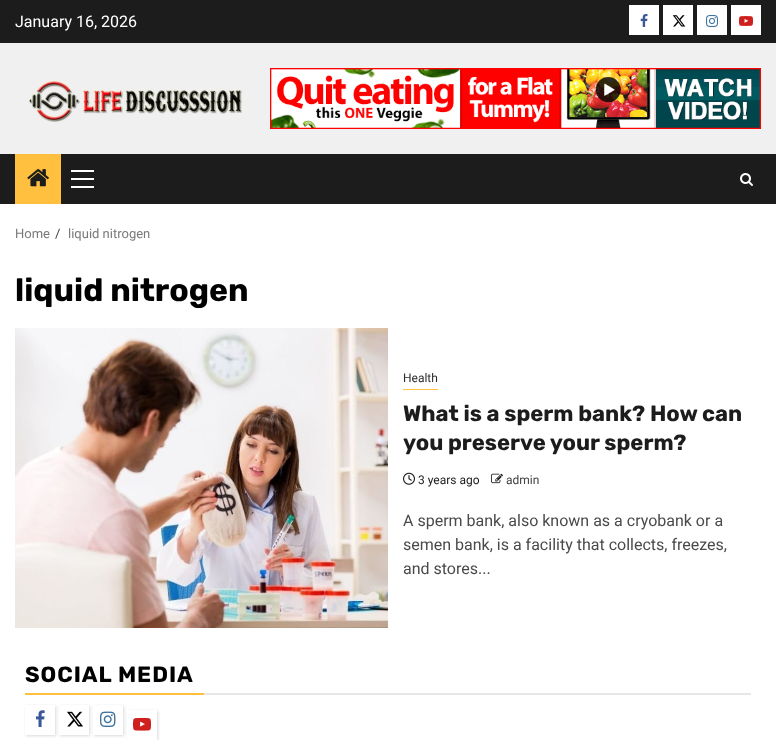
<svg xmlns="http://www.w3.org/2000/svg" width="776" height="740">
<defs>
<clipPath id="clip1"><path d="M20 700h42v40h-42zm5 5h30v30h-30z" clip-rule="evenodd"/></clipPath>
<clipPath id="clip2"><path d="M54 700h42v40h-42zm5 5h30v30h-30z" clip-rule="evenodd"/></clipPath>
<clipPath id="clip3"><path d="M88 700h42v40h-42zm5 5h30v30h-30z" clip-rule="evenodd"/></clipPath>
<clipPath id="clip4"><path d="M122 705h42v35h-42zm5 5h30v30h-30z" clip-rule="evenodd"/></clipPath>
</defs>
<rect width="100%" height="100%" fill="#fff"/>
<rect y="43" width="776" height="111" fill="#f0f0f0"/>
<rect width="776" height="43" fill="#1c1c1c"/>
<text x="15" y="27" style="font-family:Roboto;font-size:16px;fill:#fff">January 16, 2026</text>
<rect x="629" y="5" width="30" height="30" fill="#fff"/>
<image x="640" y="14" width="8" height="13" href="media/1.png"/>
<rect x="663" y="5" width="30" height="30" fill="#fff"/>
<image x="672" y="15" width="14" height="12" href="media/2.png"/>
<rect x="697" y="5" width="30" height="30" fill="#fff"/>
<image x="706" y="15" width="12" height="12" href="media/3.png"/>
<rect x="731" y="5" width="30" height="30" fill="#fff"/>
<image x="739" y="16" width="14" height="10" href="media/4.png"/>
<image x="28" y="80" width="215" height="42" href="media/5.png"/>
<image x="270" y="68" width="491" height="61" href="media/6.png"/>
<rect y="154" width="776" height="50" fill="#1c1c1c"/>
<rect x="15" y="154" width="46" height="50" fill="#ffbf3f"/>
<image x="27" y="169" width="22" height="18" href="media/7.png"/>
<rect x="71" y="178" width="23" height="2" fill="#fff"/>
<rect x="71" y="170" width="23" height="2" fill="#fff"/>
<rect x="71" y="186" width="23" height="2" fill="#fff"/>
<image x="740" y="173" width="13" height="13" href="media/8.png"/>
<text x="15" y="238" style="font-family:Roboto;font-size:13px;fill:#797979">Home</text>
<text x="55" y="238" style="font-family:Roboto;font-size:13px;fill:#393e46">/</text>
<text x="68" y="238" style="font-family:Roboto;font-size:13px;fill:#797979">liquid nitrogen</text>
<text x="15" y="301" style="font-family:Rubik;font-size:32px;font-weight:bold;fill:#000">liquid nitrogen</text>
<image x="15" y="328" width="373" height="300" href="media/9.png"/>
<rect x="403" y="389" width="35" height="1" fill="#ffbf3f"/>
<text x="403" y="382" style="font-family:Roboto;font-size:12px;fill:#2b2b2b">Health</text>
<text x="403" y="421" style="font-family:Rubik;font-size:22px;font-weight:bold;fill:#1c1c1c">What is a sperm bank? How can</text>
<text x="403" y="450" style="font-family:Rubik;font-size:22px;font-weight:bold;fill:#1c1c1c">you preserve your sperm?</text>
<image x="403" y="472" width="12" height="13" href="media/10.png"/>
<text x="418" y="484" style="font-family:Roboto;font-size:12px;fill:#1c1c1c">3 years ago</text>
<image x="491" y="473" width="12" height="11" href="media/11.png"/>
<text x="506" y="484" style="font-family:Roboto;font-size:12px;fill:#404040">admin</text>
<text x="403" y="526" style="font-family:Roboto;font-size:16px;fill:#4a4a4a">A sperm bank, also known as a cryobank or a</text>
<text x="403" y="550" style="font-family:Roboto;font-size:16px;fill:#4a4a4a">semen bank, is a facility that collects, freezes,</text>
<text x="403" y="574" style="font-family:Roboto;font-size:16px;fill:#4a4a4a">and stores...</text>
<rect x="25" y="693" width="179" height="2" fill="#ffbf3f"/>
<text x="25" y="682" style="font-family:Rubik;font-size:22px;font-weight:bold;letter-spacing:1px;fill:#000">SOCIAL MEDIA</text>
<rect x="204" y="693" width="547" height="2" fill="#e7e7e7"/>
<g clip-path="url(#clip1)">
<rect x="26" y="706" width="30" height="30" fill="#00000026" filter="blur(1.5px)"/>
</g>
<image x="35" y="710" width="10" height="17" href="media/12.png"/>
<g clip-path="url(#clip2)">
<rect x="60" y="706" width="30" height="30" fill="#00000026" filter="blur(1.5px)"/>
</g>
<image x="67" y="711" width="16" height="16" href="media/13.png"/>
<g clip-path="url(#clip3)">
<rect x="94" y="706" width="30" height="30" fill="#00000026" filter="blur(1.5px)"/>
</g>
<image x="100" y="711" width="16" height="16" href="media/14.png"/>
<g clip-path="url(#clip4)">
<rect x="128" y="711" width="30" height="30" fill="#00000026" filter="blur(1.5px)"/>
</g>
<image x="133" y="717" width="18" height="14" href="media/15.png"/>
</svg>
